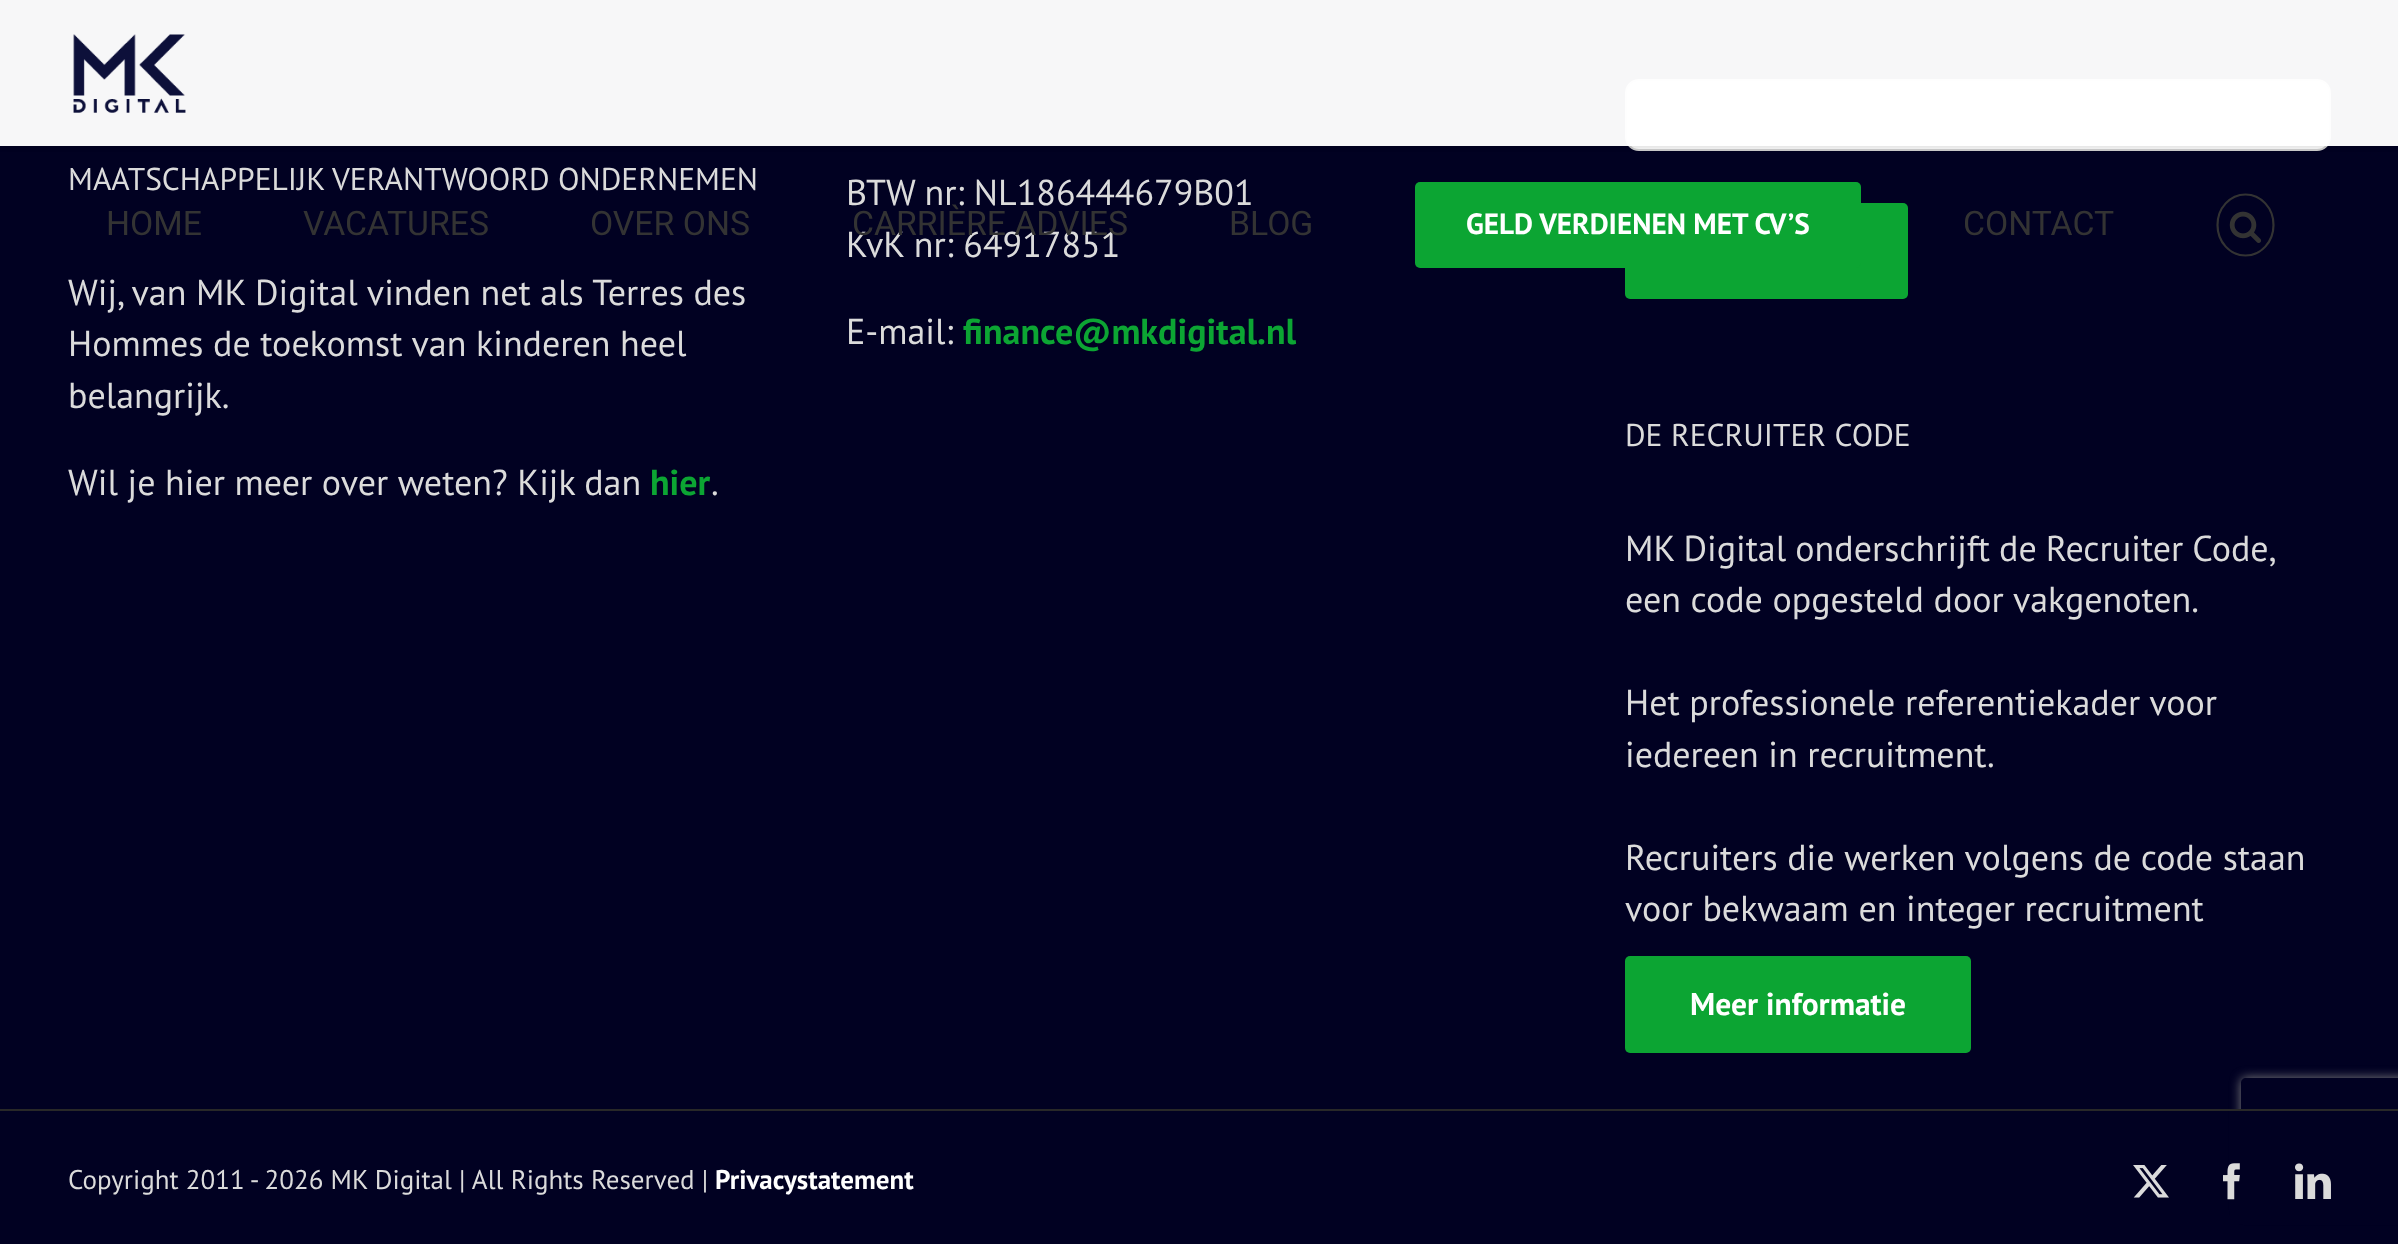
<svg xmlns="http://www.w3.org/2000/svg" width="2398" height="1244">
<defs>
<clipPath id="clip1"><path d="M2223 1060h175v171h-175zm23 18h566c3 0 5 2 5 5v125c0 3-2 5-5 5h-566c-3 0-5-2-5-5v-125c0-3 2-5 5-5z" clip-rule="evenodd"/></clipPath>
<clipPath id="clip2"><rect x="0" y="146" width="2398" height="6"/></clipPath>
</defs>
<rect width="100%" height="100%" fill="#010122"/>
<text x="68" y="190" style="font-family:PT Sans;font-size:31.5px;fill:#dbdbdb">MAATSCHAPPELIJK VERANTWOORD ONDERNEMEN</text>
<text x="68" y="305" style="font-family:PT Sans;font-size:36px;fill:#dbdbdb">Wij, van MK Digital vinden net als Terres des</text>
<text x="68" y="356" style="font-family:PT Sans;font-size:36px;fill:#dbdbdb">Hommes de toekomst van kinderen heel</text>
<text x="68" y="408" style="font-family:PT Sans;font-size:36px;fill:#dbdbdb">belangrijk.</text>
<text x="68" y="495" style="font-family:PT Sans;font-size:36px;fill:#dbdbdb">Wil je hier meer over weten? Kijk dan</text>
<text x="650" y="495" style="font-family:PT Sans;font-size:36px;font-weight:bold;fill:#0ca533">hier</text>
<text x="711" y="495" style="font-family:PT Sans;font-size:36px;fill:#dbdbdb">.</text>
<text x="846" y="205" style="font-family:PT Sans;font-size:36px;fill:#dbdbdb">BTW nr: NL186444679B01</text>
<text x="846" y="257" style="font-family:PT Sans;font-size:36px;fill:#dbdbdb">KvK nr: 64917851</text>
<text x="846" y="344" style="font-family:PT Sans;font-size:36px;fill:#dbdbdb">E-mail:</text>
<text x="963" y="344" style="font-family:PT Sans;font-size:36px;font-weight:bold;fill:#0ca533">finance@mkdigital.nl</text>
<rect x="1626" y="80" width="704" height="70" rx="13" fill="#fff" stroke="#d2d2d2" stroke-width="2"/>
<rect x="1625" y="203" width="283" height="96" rx="5" fill="#0ca533"/>
<text x="1625" y="446" style="font-family:PT Sans;font-size:31.5px;fill:#dbdbdb">DE RECRUITER CODE</text>
<text x="1625" y="561" word-spacing="-0.5" style="font-family:PT Sans;font-size:36px;fill:#dbdbdb">MK Digital onderschrijft de Recruiter Code,</text>
<text x="1625" y="612" style="font-family:PT Sans;font-size:36px;fill:#dbdbdb">een code opgesteld door vakgenoten.</text>
<text x="1625" y="715" style="font-family:PT Sans;font-size:36px;fill:#dbdbdb">Het professionele referentiekader voor</text>
<text x="1625" y="767" style="font-family:PT Sans;font-size:36px;fill:#dbdbdb">iedereen in recruitment.</text>
<text x="1625" y="870" style="font-family:PT Sans;font-size:36px;fill:#dbdbdb">Recruiters die werken volgens de code staan</text>
<text x="1625" y="921" style="font-family:PT Sans;font-size:36px;fill:#dbdbdb">voor bekwaam en integer recruitment</text>
<rect x="1625" y="956" width="346" height="97" rx="5" fill="#0ca533"/>
<text x="1690" y="1015" style="font-family:PT Sans;font-size:31.5px;font-weight:bold;fill:#fff">Meer informatie</text>
<g clip-path="url(#clip1)">
<rect x="2241" y="1078" width="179" height="135" rx="5" fill="#808080" filter="blur(5.5px)"/>
</g>
<rect x="2230" y="1111" width="168" height="113" fill="#010122"/>
<rect y="1109" width="2398" height="2" fill="#282828"/>
<text x="68" y="1189" style="font-family:PT Sans;font-size:27px;fill:#dbdbdb">Copyright 2011 - 2026 MK Digital | All Rights Reserved |</text>
<text x="715" y="1189" style="font-family:PT Sans;font-size:27px;font-weight:bold;fill:#fff">Privacystatement</text>
<image x="2133" y="1165" width="36" height="33" href="media/1.png"/>
<image x="2223" y="1163" width="17" height="37" href="media/2.png"/>
<image x="2295" y="1163" width="36" height="36" href="media/3.png"/>
<g clip-path="url(#clip2)">
<rect y="2" width="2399" height="147" fill="#0000001f" filter="blur(3.5px)"/>
</g>
<rect width="2398" height="146" fill="#fffffff7"/>
<image x="73" y="34" width="113" height="79" href="media/4.png"/>
<text x="106" y="235" style="font-family:Roboto;font-size:33.75px;fill:#333">HOME</text>
<text x="303" y="235" style="font-family:Roboto;font-size:33.75px;fill:#333">VACATURES</text>
<text x="590" y="235" style="font-family:Roboto;font-size:33.75px;fill:#333">OVER ONS</text>
<text x="852" y="235" style="font-family:Roboto;font-size:33.75px;fill:#333">CARRIÈRE ADVIES</text>
<text x="1229" y="235" style="font-family:Roboto;font-size:33.75px;fill:#333">BLOG</text>
<rect x="1415" y="182" width="446" height="86" rx="5" fill="#0ca533"/>
<text x="1466" y="234" style="font-family:PT Sans;font-size:29.25px;font-weight:bold;fill:#fff">GELD VERDIENEN MET CV’S</text>
<text x="1963" y="235" style="font-family:Roboto;font-size:33.75px;fill:#333">CONTACT</text>
<path d="M2245.5 194.5c15.5 0 28 13.5 28 30.5c0 17-12.5 30.5-28 30.5c-15.5 0-28-13.5-28-30.5c0-17 12.5-30.5 28-30.5z" fill="none" stroke="#333" stroke-width="2.2"/>
<image x="2229" y="211" width="32" height="32" href="media/5.png"/>
</svg>
